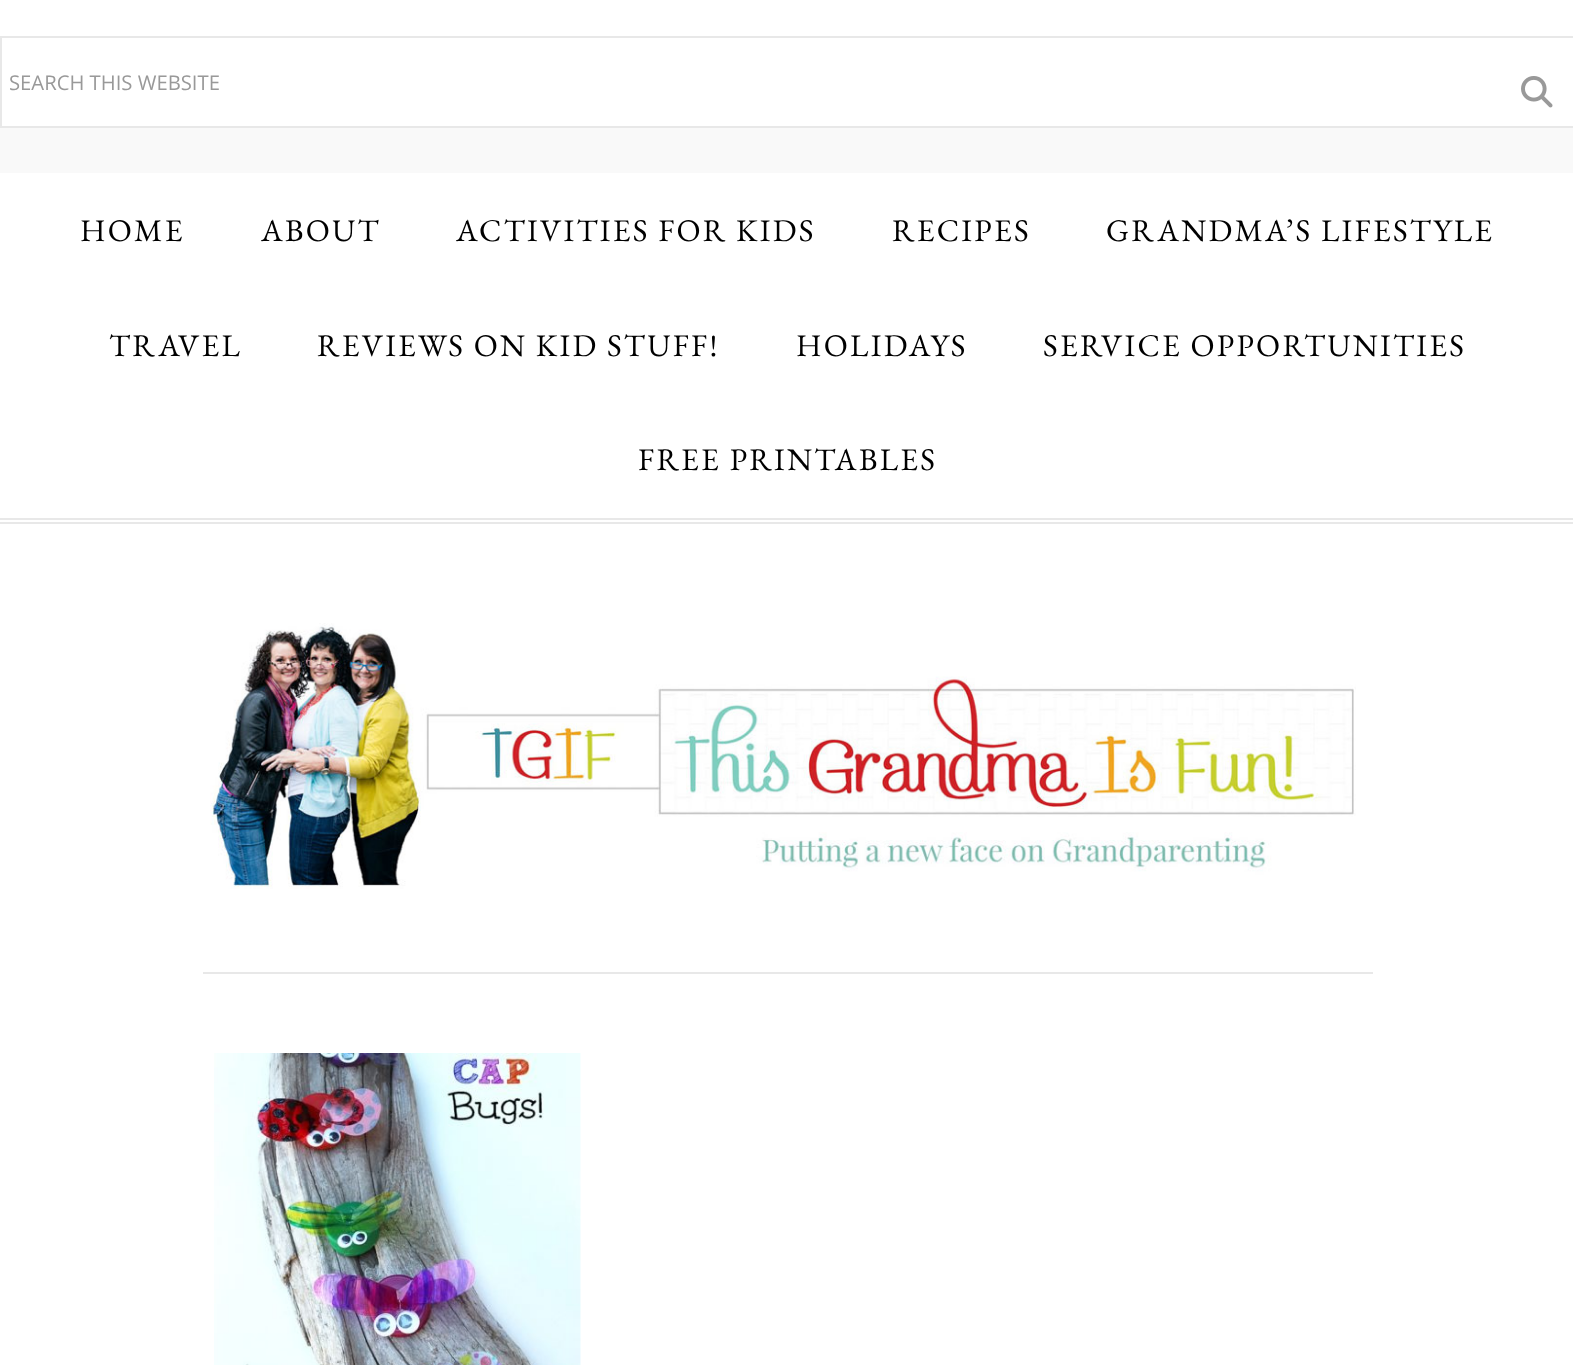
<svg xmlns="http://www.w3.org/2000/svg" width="1573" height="1365">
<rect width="100%" height="100%" fill="#fff"/>
<rect x="1" y="37" width="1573" height="90" fill="none" stroke="#e8e8e8" stroke-width="2"/>
<text x="9" y="90" style="font-family:Open Sans;font-size:20.25px;fill:#999">SEARCH THIS WEBSITE</text>
<image x="1521" y="76" width="32" height="32" href="media/1.png"/>
<rect y="128" width="1573" height="45" fill="#f9f9f9"/>
<rect y="518" width="1573" height="2" fill="#e8e8e8"/>
<rect y="522" width="1573" height="2" fill="#e8e8e8"/>
<text x="80" y="241" style="font-family:EB Garamond;font-size:31.5px;letter-spacing:2.25px;fill:#000">HOME</text>
<text x="261" y="241" style="font-family:EB Garamond;font-size:31.5px;letter-spacing:2.25px;fill:#000">ABOUT</text>
<text x="456" y="241" style="font-family:EB Garamond;font-size:31.5px;letter-spacing:2.25px;fill:#000">ACTIVITIES FOR KIDS</text>
<text x="892" y="241" style="font-family:EB Garamond;font-size:31.5px;letter-spacing:2.25px;fill:#000">RECIPES</text>
<text x="1106" y="241" style="font-family:EB Garamond;font-size:31.5px;letter-spacing:2.25px;fill:#000">GRANDMA’S LIFESTYLE</text>
<text x="109" y="356" style="font-family:EB Garamond;font-size:31.5px;letter-spacing:2.25px;fill:#000">TRAVEL</text>
<text x="317" y="356" style="font-family:EB Garamond;font-size:31.5px;letter-spacing:2.25px;fill:#000">REVIEWS ON KID STUFF!</text>
<text x="796" y="356" style="font-family:EB Garamond;font-size:31.5px;letter-spacing:2.25px;fill:#000">HOLIDAYS</text>
<text x="1043" y="356" style="font-family:EB Garamond;font-size:31.5px;letter-spacing:2.25px;fill:#000">SERVICE OPPORTUNITIES</text>
<text x="638" y="470" style="font-family:EB Garamond;font-size:31.5px;letter-spacing:2.25px;fill:#000">FREE PRINTABLES</text>
<rect x="203" y="972" width="1170" height="2" fill="#e8e8e8"/>
<image x="210" y="623" width="1146" height="266" href="media/2.png"/>
<image x="214" y="1053" width="367" height="312" href="media/3.png"/>
</svg>
